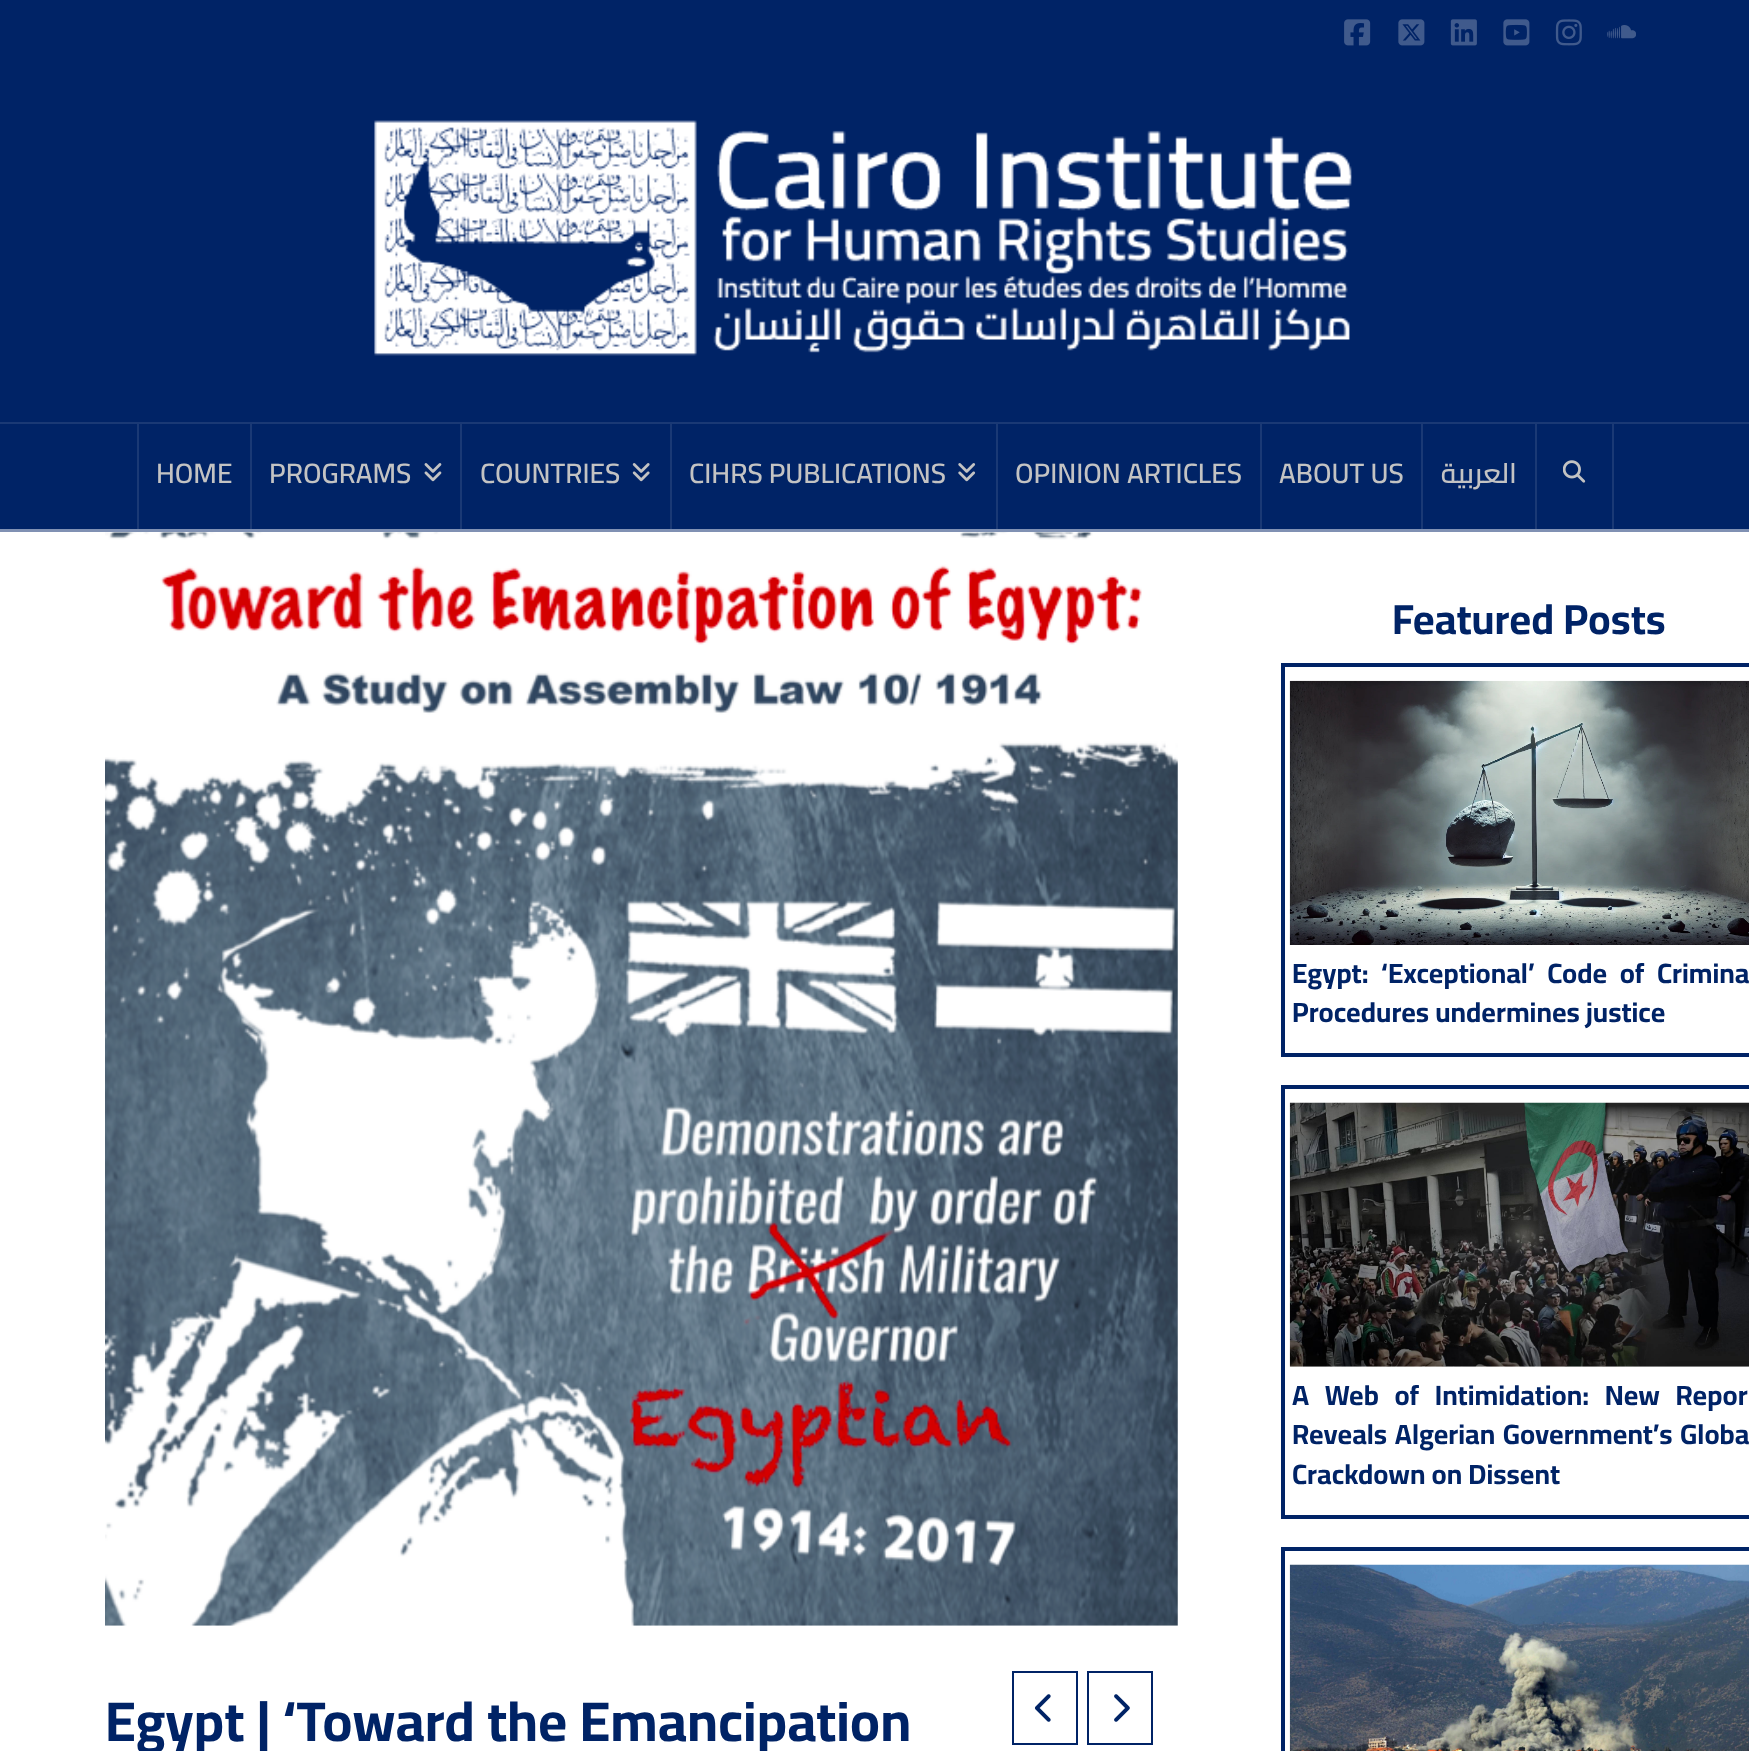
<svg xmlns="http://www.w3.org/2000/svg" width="1749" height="1751">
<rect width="100%" height="100%" fill="#fff"/>
<rect width="1749" height="422" fill="#002366"/>
<rect y="422" width="1749" height="2" fill="#1a3975"/>
<image x="374" y="120" width="978" height="236" href="media/1.png"/>
<image x="1344" y="19" width="27" height="27" href="media/2.png"/>
<image x="1398" y="19" width="27" height="27" href="media/3.png"/>
<image x="1450" y="19" width="27" height="27" href="media/4.png"/>
<image x="1503" y="19" width="27" height="27" href="media/5.png"/>
<image x="1555" y="19" width="27" height="27" href="media/6.png"/>
<image x="1607" y="25" width="29" height="14" href="media/7.png"/>
<rect y="424" width="1749" height="108" fill="#002366"/>
<image x="105" y="532" width="1073" height="1094" href="media/15.png"/>
<rect y="529" width="1749" height="4" fill="#ffffff80"/>
<rect x="250" y="424" width="2" height="105" fill="#1a3975"/>
<rect x="137" y="424" width="2" height="105" fill="#1a3975"/>
<text x="156" y="483" style="font-family:Cairo;font-size:28px;font-weight:600;fill:#c3c3c3">HOME</text>
<rect x="460" y="424" width="2" height="105" fill="#1a3975"/>
<text x="269" y="483" style="font-family:Cairo;font-size:28px;font-weight:600;fill:#c3c3c3">PROGRAMS</text>
<image x="424" y="463" width="18" height="19" href="media/8.png"/>
<rect x="670" y="424" width="2" height="105" fill="#1a3975"/>
<text x="480" y="483" style="font-family:Cairo;font-size:28px;font-weight:600;fill:#c3c3c3">COUNTRIES</text>
<image x="632" y="463" width="18" height="19" href="media/9.png"/>
<rect x="996" y="424" width="2" height="105" fill="#1a3975"/>
<text x="689" y="483" style="font-family:Cairo;font-size:28px;font-weight:600;fill:#c3c3c3">CIHRS PUBLICATIONS</text>
<image x="958" y="463" width="18" height="19" href="media/10.png"/>
<rect x="1260" y="424" width="2" height="105" fill="#1a3975"/>
<text x="1015" y="483" style="font-family:Cairo;font-size:28px;font-weight:600;fill:#c3c3c3">OPINION ARTICLES</text>
<rect x="1421" y="424" width="2" height="105" fill="#1a3975"/>
<text x="1279" y="483" style="font-family:Cairo;font-size:28px;font-weight:600;fill:#c3c3c3">ABOUT US</text>
<rect x="1535" y="424" width="2" height="105" fill="#1a3975"/>
<text x="1517" y="483" style="font-family:Cairo;font-size:28px;font-weight:600;direction:rtl;fill:#c3c3c3">العربية</text>
<rect x="1612" y="424" width="2" height="105" fill="#1a3975"/>
<image x="1563" y="460" width="23" height="23" href="media/11.png"/>
<text x="1392" y="634" style="font-family:Cairo;font-size:42px;font-weight:bold;fill:#002366">Featured Posts</text>
<rect x="1283" y="665" width="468" height="390" fill="none" stroke="#002366" stroke-width="4"/>
<image x="1289" y="680" width="460" height="265" href="media/12.png"/>
<text x="1292" y="983" word-spacing="6.5" style="font-family:Cairo;font-size:28px;font-weight:bold;fill:#002366">Egypt: ‘Exceptional’ Code of Crimina</text>
<text x="1292" y="1022" style="font-family:Cairo;font-size:28px;font-weight:bold;fill:#002366">Procedures undermines justice</text>
<rect x="1283" y="1087" width="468" height="430" fill="none" stroke="#002366" stroke-width="4"/>
<image x="1289" y="1102" width="460" height="265" href="media/13.png"/>
<text x="1292" y="1405" word-spacing="9.5" style="font-family:Cairo;font-size:28px;font-weight:bold;fill:#002366">A Web of Intimidation: New Repor</text>
<text x="1292" y="1444" word-spacing="1.5" style="font-family:Cairo;font-size:28px;font-weight:bold;fill:#002366">Reveals Algerian Government’s Globa</text>
<text x="1292" y="1484" style="font-family:Cairo;font-size:28px;font-weight:bold;fill:#002366">Crackdown on Dissent</text>
<rect x="1283" y="1549" width="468" height="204" fill="none" stroke="#002366" stroke-width="4"/>
<image x="1289" y="1564" width="460" height="187" href="media/14.png"/>
<text x="105" y="1741" style="font-family:Cairo;font-size:56px;font-weight:bold;fill:#002366">Egypt | ‘Toward the Emancipation</text>
<rect x="1013" y="1672" width="64" height="72" fill="none" stroke="#002366" stroke-width="2"/>
<image x="1034" y="1694" width="17" height="28" href="media/16.png"/>
<rect x="1088" y="1672" width="64" height="72" fill="none" stroke="#002366" stroke-width="2"/>
<image x="1114" y="1694" width="16" height="28" href="media/17.png"/>
</svg>
